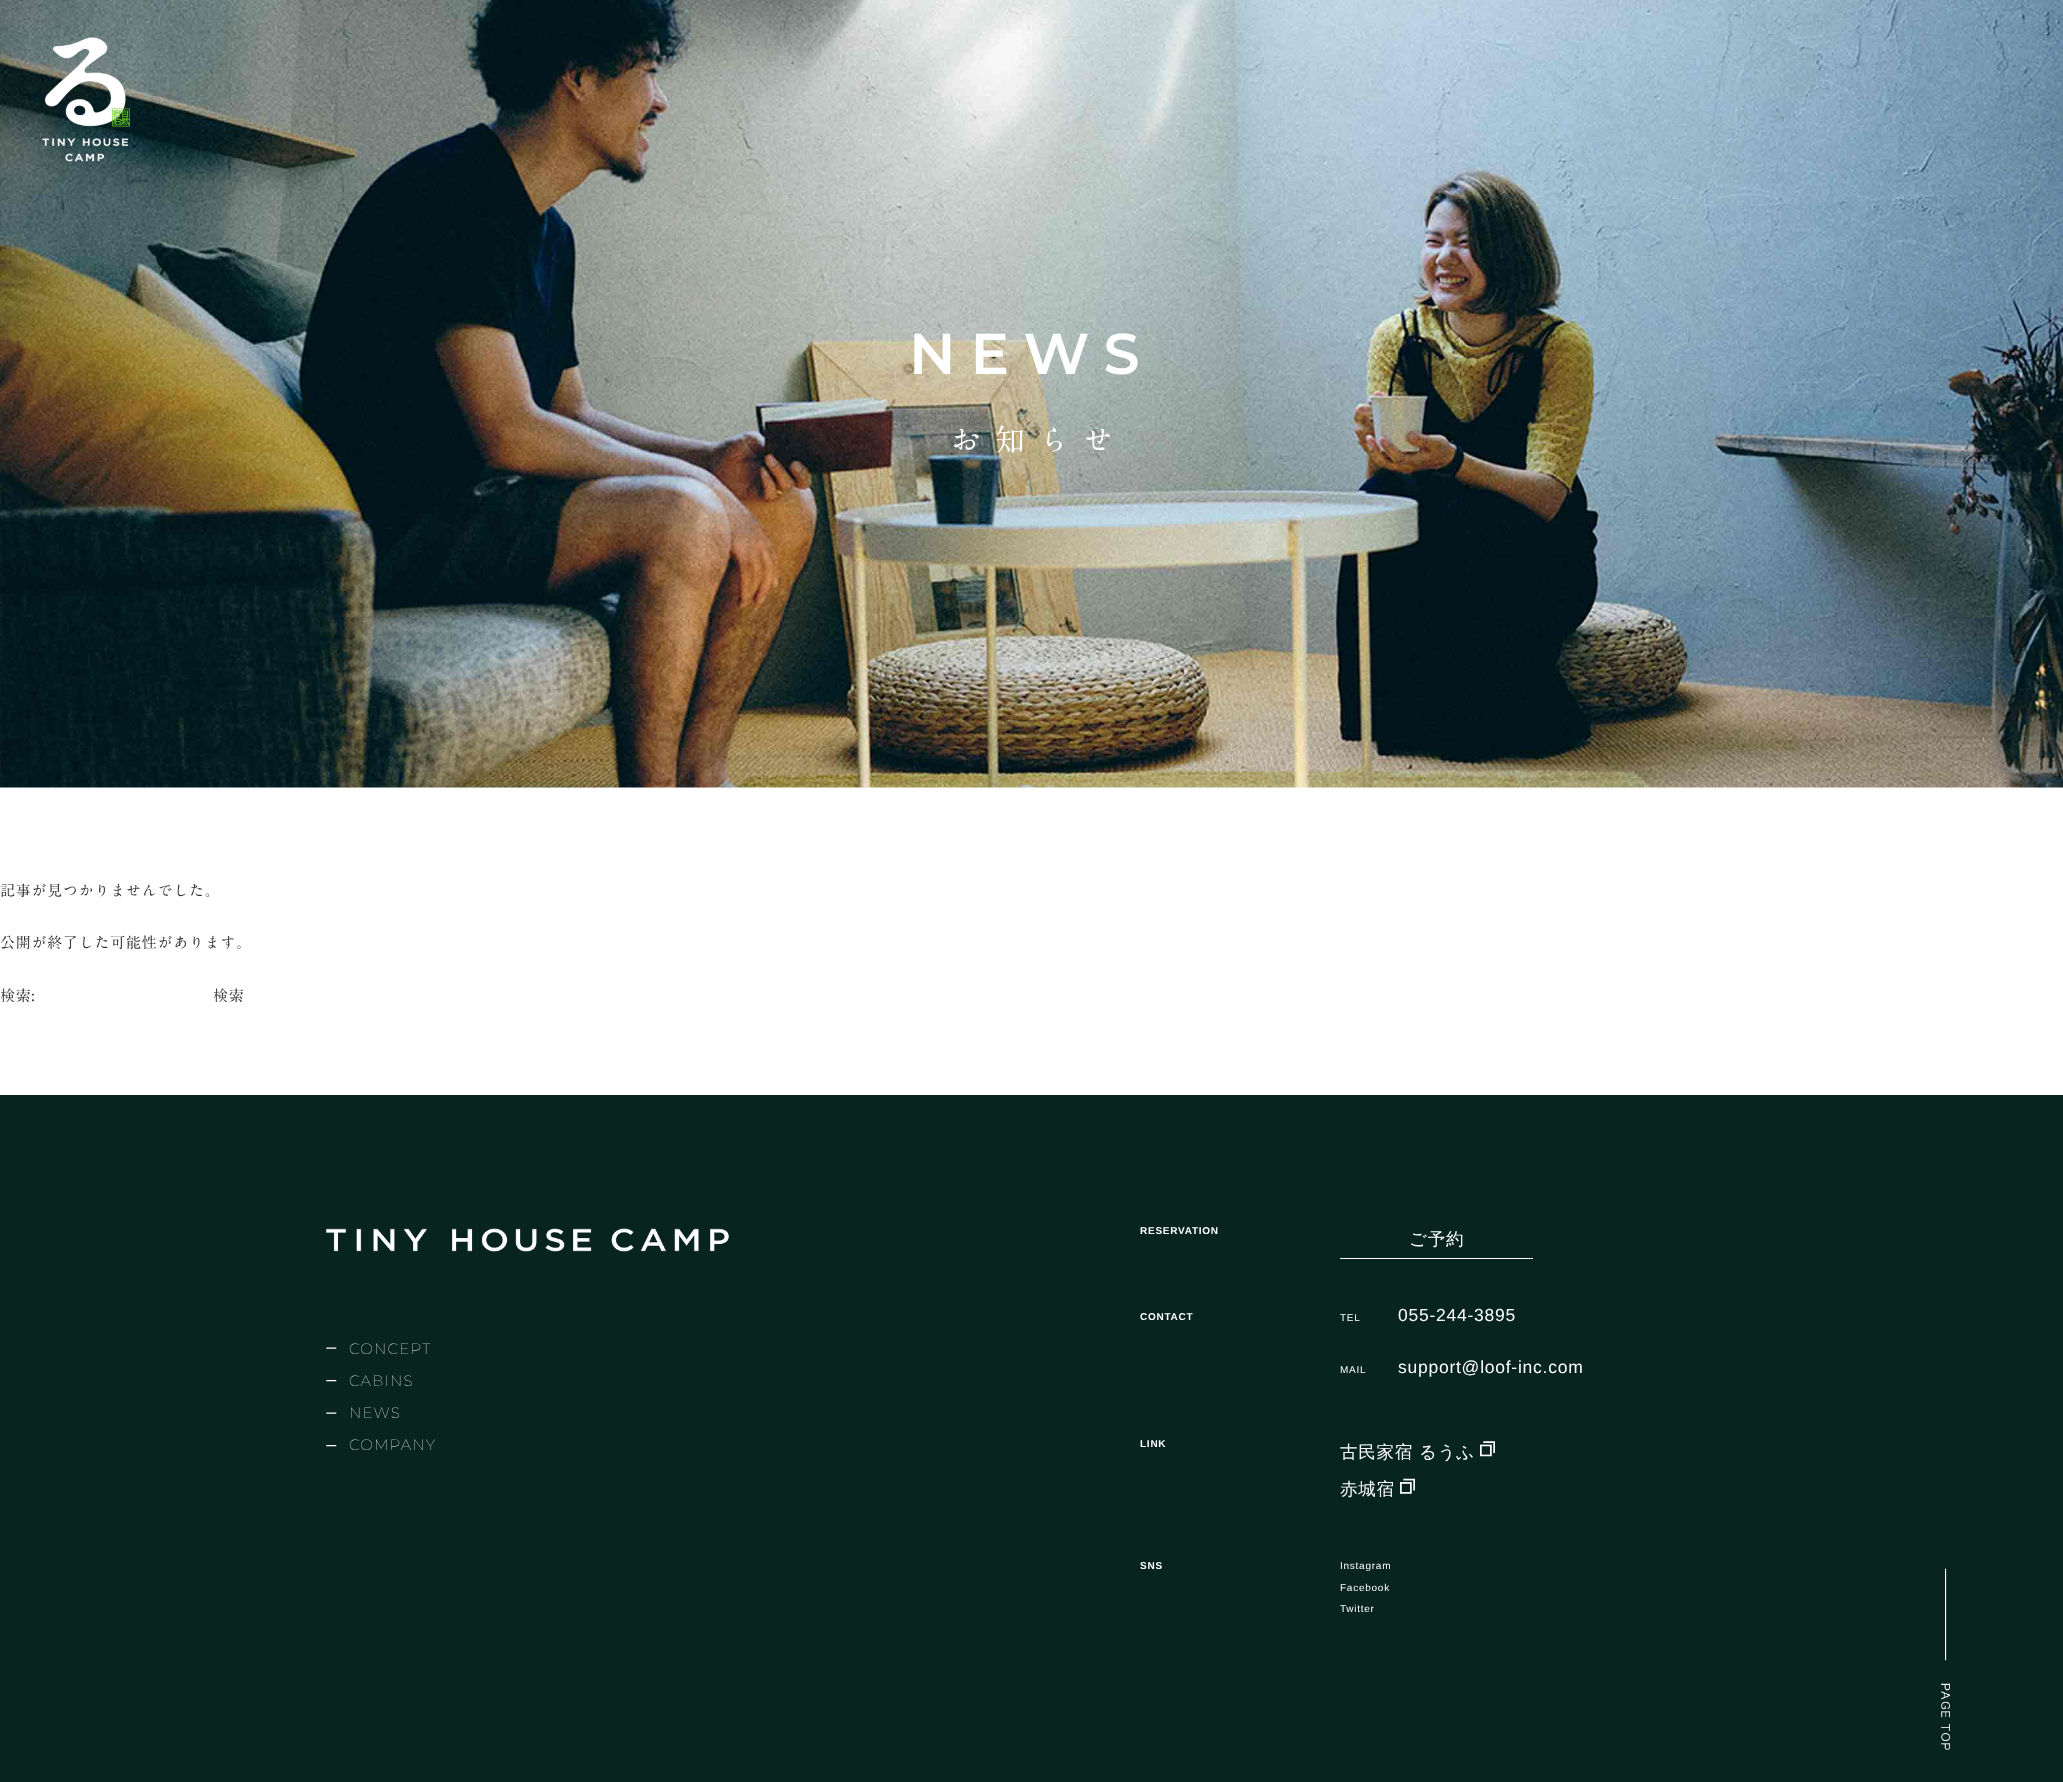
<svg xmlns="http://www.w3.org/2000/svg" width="2063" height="1782">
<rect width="100%" height="100%" fill="#fff"/>
<image x="0" y="0" width="2063" height="788" href="media/1.png"/>
<image x="42" y="37" width="88" height="125" href="media/2.png"/>
<text x="909" y="374" style="font-family:Montserrat;font-size:57.5px;font-weight:600;letter-spacing:15px;fill:#fff">NEWS</text>
<text x="951" y="451" style="font-family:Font;font-size:30px;fill:#fff">お</text>
<text x="995" y="451" style="font-family:Font;font-size:30px;fill:#fff">知</text>
<text x="1039" y="451" style="font-family:Font;font-size:30px;fill:#fff">ら</text>
<text x="1083" y="451" style="font-family:Font;font-size:30px;fill:#fff">せ</text>
<text x="0" y="896" style="font-family:Font;font-size:15px;letter-spacing:0.75px;fill:#333">記事が見つかりませんでした。</text>
<text x="0" y="948" style="font-family:Font;font-size:15px;letter-spacing:0.75px;fill:#333">公開が終了した可能性があります。</text>
<text x="0" y="1001" style="font-family:Font;font-size:15px;letter-spacing:0.75px;fill:#333">検索:</text>
<text x="213" y="1001" style="font-family:Font;font-size:15px;letter-spacing:0.75px;fill:#333">検索</text>
<rect y="1095" width="2063" height="687" fill="#08241e"/>
<image x="326" y="1228" width="403" height="24" href="media/3.png"/>
<image x="326" y="1347" width="11" height="2" href="media/4.png"/>
<text x="349" y="1354" style="font-family:Montserrat;font-size:15px;font-weight:100;letter-spacing:1.25px;fill:#fff">CONCEPT</text>
<image x="326" y="1380" width="11" height="2" href="media/5.png"/>
<text x="349" y="1386" style="font-family:Montserrat;font-size:15px;font-weight:100;letter-spacing:1.25px;fill:#fff">CABINS</text>
<image x="326" y="1412" width="11" height="2" href="media/4.png"/>
<text x="349" y="1418" style="font-family:Montserrat;font-size:15px;font-weight:100;letter-spacing:1.25px;fill:#fff">NEWS</text>
<image x="326" y="1445" width="11" height="2" href="media/5.png"/>
<text x="349" y="1450" style="font-family:Montserrat;font-size:15px;font-weight:100;letter-spacing:1.25px;fill:#fff">COMPANY</text>
<text x="1140" y="1234" style="font-family:Liberation Sans;font-size:10px;font-weight:bold;letter-spacing:0.75px;fill:#fff">RESERVATION</text>
<rect x="1340" y="1258" width="193" height="1" fill="#fff"/>
<text x="1409" y="1245" style="font-family:WenQuanYi Zen Hei;font-size:17.5px;font-weight:500;letter-spacing:0.75px;fill:#fff">ご予約</text>
<text x="1140" y="1320" style="font-family:Liberation Sans;font-size:10px;font-weight:bold;letter-spacing:0.75px;fill:#fff">CONTACT</text>
<text x="1340" y="1321" style="font-family:Liberation Sans;font-size:10px;letter-spacing:0.75px;fill:#fff">TEL</text>
<text x="1398" y="1321" style="font-family:Liberation Sans;font-size:17.5px;letter-spacing:0.75px;fill:#fff">055-244-3895</text>
<text x="1340" y="1373" style="font-family:Liberation Sans;font-size:10px;letter-spacing:0.75px;fill:#fff">MAIL</text>
<text x="1398" y="1373" style="font-family:Liberation Sans;font-size:17.5px;letter-spacing:0.75px;fill:#fff">support@loof-inc.com</text>
<text x="1140" y="1447" style="font-family:Liberation Sans;font-size:10px;font-weight:bold;letter-spacing:0.75px;fill:#fff">LINK</text>
<text x="1340" y="1458" style="font-family:WenQuanYi Zen Hei;font-size:17.5px;font-weight:500;letter-spacing:0.75px;fill:#fff">古民家宿 るうふ</text>
<image x="1480" y="1441" width="15" height="16" href="media/6.png"/>
<text x="1340" y="1495" style="font-family:WenQuanYi Zen Hei;font-size:17.5px;font-weight:500;letter-spacing:0.75px;fill:#fff">赤城宿</text>
<image x="1400" y="1478" width="15" height="16" href="media/7.png"/>
<text x="1140" y="1569" style="font-family:Liberation Sans;font-size:10px;font-weight:bold;letter-spacing:0.75px;fill:#fff">SNS</text>
<text x="1340" y="1569" style="font-family:Liberation Sans;font-size:10px;letter-spacing:0.75px;fill:#fff">Instagram</text>
<text x="1340" y="1591" style="font-family:Liberation Sans;font-size:10px;letter-spacing:0.75px;fill:#fff">Facebook</text>
<text x="1340" y="1612" style="font-family:Liberation Sans;font-size:10px;letter-spacing:0.75px;fill:#fff">Twitter</text>
<image x="1941" y="1568" width="9" height="182" href="media/8.png"/>
</svg>
